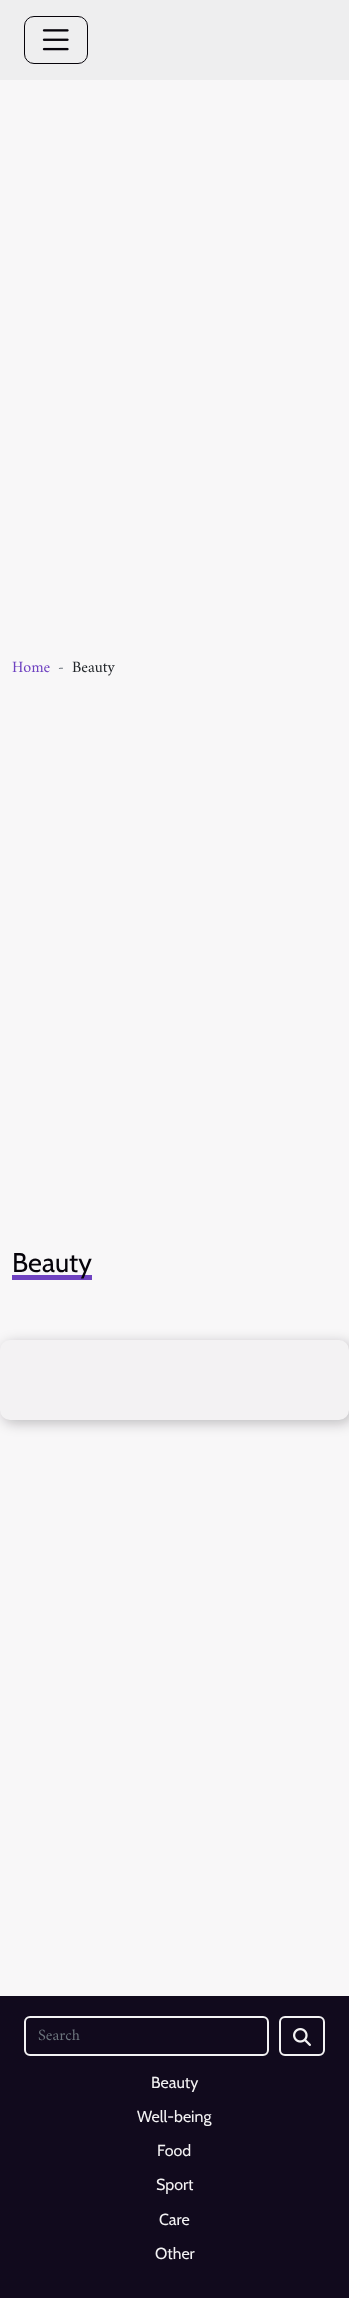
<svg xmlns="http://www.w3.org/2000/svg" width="349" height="2298">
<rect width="100%" height="100%" fill="#f8f7f8"/>
<rect width="349" height="80" fill="#eeeeef"/>
<rect x="24.5" y="16.5" width="63" height="47" rx="9.5" fill="none" stroke="#06030a"/>
<image x="42" y="29" width="27" height="22" href="media/1.png"/>
<text x="12" y="672" style="font-family:Amiri;font-size:16px;fill:#6f42c1">Home</text>
<text x="58" y="672" style="font-family:Amiri;font-size:16px;fill:#6c757d">-</text>
<text x="72" y="672" style="font-family:Amiri;font-size:16px;fill:#212529">Beauty</text>
<rect x="12" y="1275" width="80" height="5" fill="#6f42c1"/>
<text x="12" y="1272" style="font-family:Cabin;font-size:27px;fill:#06030a">Beauty</text>
<rect x="3" y="1343" width="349" height="80" rx="10" fill="#06030a40" filter="blur(6.5px)"/>
<rect y="1340" width="349" height="80" rx="10" fill="#f3f2f3"/>
<rect y="1996" width="349" height="302" fill="#110a1d"/>
<rect x="25" y="2017" width="243" height="38" rx="5" fill="none" stroke="#f3f2f3" stroke-width="2"/>
<text x="38" y="2040" style="font-family:Amiri;font-size:16px;fill:#6c757d">Search</text>
<rect x="280" y="2017" width="44" height="38" rx="5" fill="none" stroke="#f3f2f3" stroke-width="2"/>
<image x="293" y="2028" width="18" height="18" href="media/2.png"/>
<text x="151" y="2088" style="font-family:Cabin;font-size:16px;fill:#f3f2f3">Beauty</text>
<text x="137" y="2122" style="font-family:Cabin;font-size:16px;fill:#f3f2f3">Well-being</text>
<text x="157" y="2156" style="font-family:Cabin;font-size:16px;fill:#f3f2f3">Food</text>
<text x="156" y="2190" style="font-family:Cabin;font-size:16px;fill:#f3f2f3">Sport</text>
<text x="159" y="2225" style="font-family:Cabin;font-size:16px;fill:#f3f2f3">Care</text>
<text x="155" y="2259" style="font-family:Cabin;font-size:16px;fill:#f3f2f3">Other</text>
</svg>
